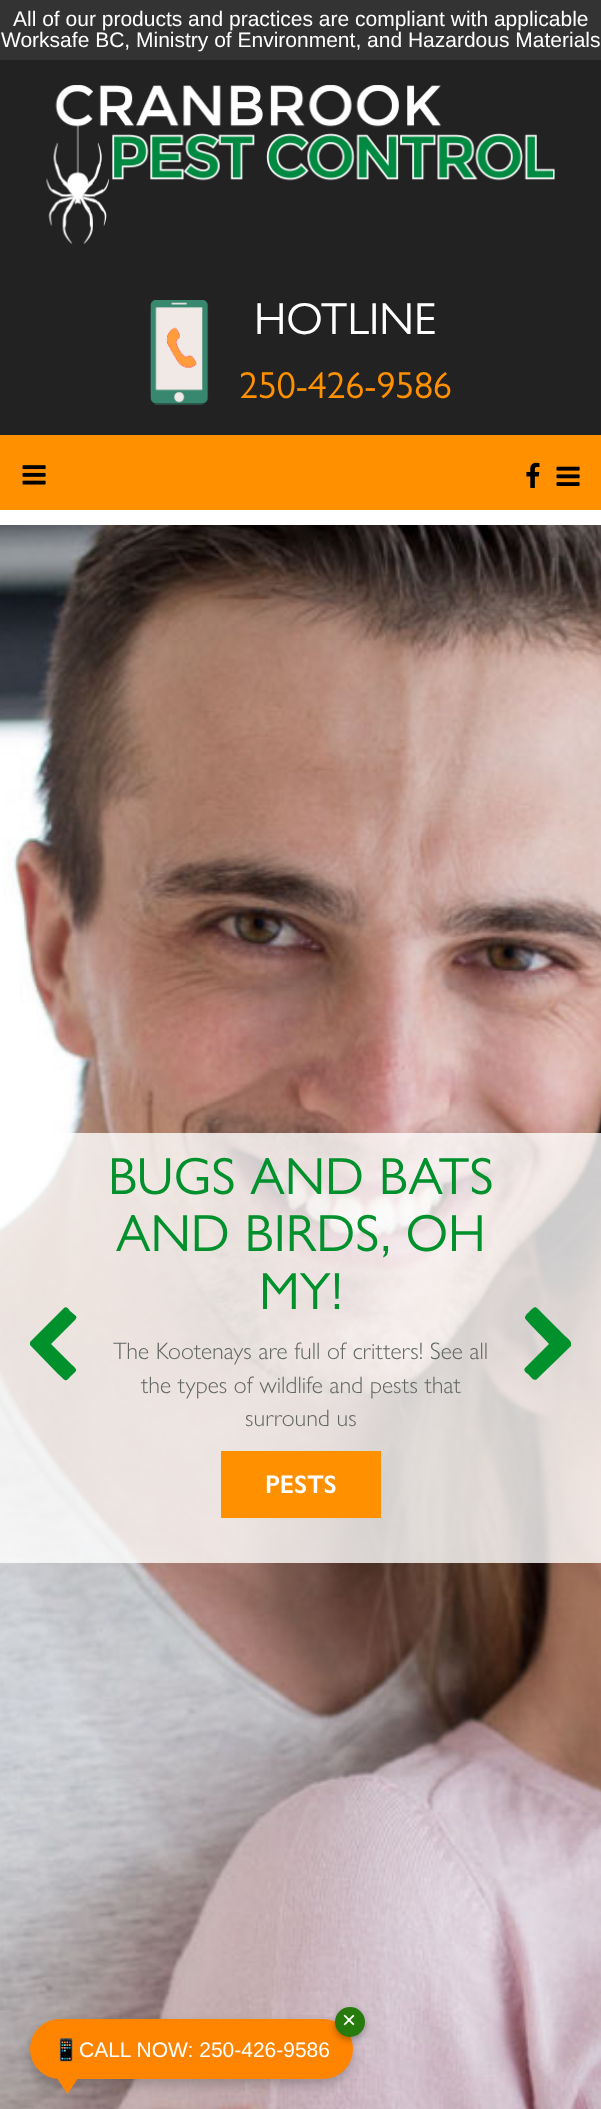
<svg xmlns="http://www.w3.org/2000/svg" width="601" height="2109">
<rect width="100%" height="100%" fill="#222"/>
<rect width="601" height="60" fill="#333"/>
<text x="13" y="26" style="font-family:Liberation Sans;font-size:21px;fill:#fff">All of our products and practices are compliant with applicable</text>
<text x="1" y="47" style="font-family:Liberation Sans;font-size:21px;fill:#fff">Worksafe BC, Ministry of Environment, and Hazardous Materials</text>
<image x="46" y="84" width="509" height="160" href="media/1.png"/>
<image x="150" y="300" width="59" height="105" href="media/2.png"/>
<text x="254" y="334" style="font-family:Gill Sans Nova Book;font-size:45px;fill:#fff">HOTLINE</text>
<text x="239" y="398" style="font-family:Gill Sans Nova Book;font-size:37.75px;fill:#ff9000">250-426-9586</text>
<rect y="435" width="601" height="75" fill="#ff9000"/>
<rect y="510" width="601" height="15" fill="#fff"/>
<image x="22" y="465" width="24" height="20" href="media/3.png"/>
<image x="526" y="462" width="14" height="26" href="media/4.png"/>
<image x="556" y="466" width="24" height="20" href="media/5.png"/>
<image x="0" y="525" width="601" height="1584" href="media/6.png"/>
<rect y="1133" width="601" height="430" fill="#ffffffcc"/>
<path d="M75 1320l-24 24l20 20c8 7 6 6-1 13c-5 6-5 3-12-3l-28-29v-3l34-34c2-2 5 1 6 3l6 5c1 1 0 3-1 4z" fill="#00902c"/>
<text x="108" y="1194" style="font-family:Gill Sans Nova Book;font-size:52.5px;fill:#00902c">BUGS AND BATS</text>
<text x="116" y="1251" style="font-family:Gill Sans Nova Book;font-size:52.5px;fill:#00902c">AND BIRDS, OH</text>
<text x="259" y="1309" style="font-family:Gill Sans Nova Book;font-size:52.5px;fill:#00902c">MY!</text>
<text x="113" y="1359" style="font-family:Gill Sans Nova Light;font-size:24px;font-weight:300;fill:#616763">The Kootenays are full of critters! See all</text>
<text x="141" y="1393" style="font-family:Gill Sans Nova Light;font-size:24px;font-weight:300;fill:#616763">the types of wildlife and pests that</text>
<text x="245" y="1426" style="font-family:Gill Sans Nova Light;font-size:24px;font-weight:300;fill:#616763">surround us</text>
<rect x="221" y="1451" width="160" height="67" fill="#ff9000"/>
<text x="265" y="1493" style="font-family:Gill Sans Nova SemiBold;font-size:25.5px;font-weight:600;fill:#fff">PESTS</text>
<path d="M571 1346l-34 33c-3 3-7-3-9-5c-2-1-5-4-3-6l24-24c-3-4-24-24-24-26c0-3 3-5 4-6c7-7 6-6 14 2l22 22c1 1 7 5 6 8z" fill="#00902c"/>
<rect x="30" y="2025" width="323" height="60" rx="30" fill="#00000033" filter="blur(6px)"/>
<rect x="30" y="2019" width="323" height="60" rx="30" fill="#ff8400"/>
<rect x="335" y="2010" width="30" height="30" rx="15" fill="#0000004d" filter="blur(3px)"/>
<circle cx="350" cy="2022" r="15" fill="#267b0c"/>
<text x="342" y="2028" style="font-family:Liberation Sans;font-size:24px;fill:#fff">×</text>
<text x="53" y="2057" style="font-family:Noto Color Emoji;font-size:21px;fill:#fff">📱</text>
<text x="79" y="2057" style="font-family:Liberation Sans;font-size:21px;fill:#fff">CALL NOW: 250-426-9586</text>
<path d="M52.5 2071.5h30l-15 22.5z" fill="#ff8400"/>
</svg>
